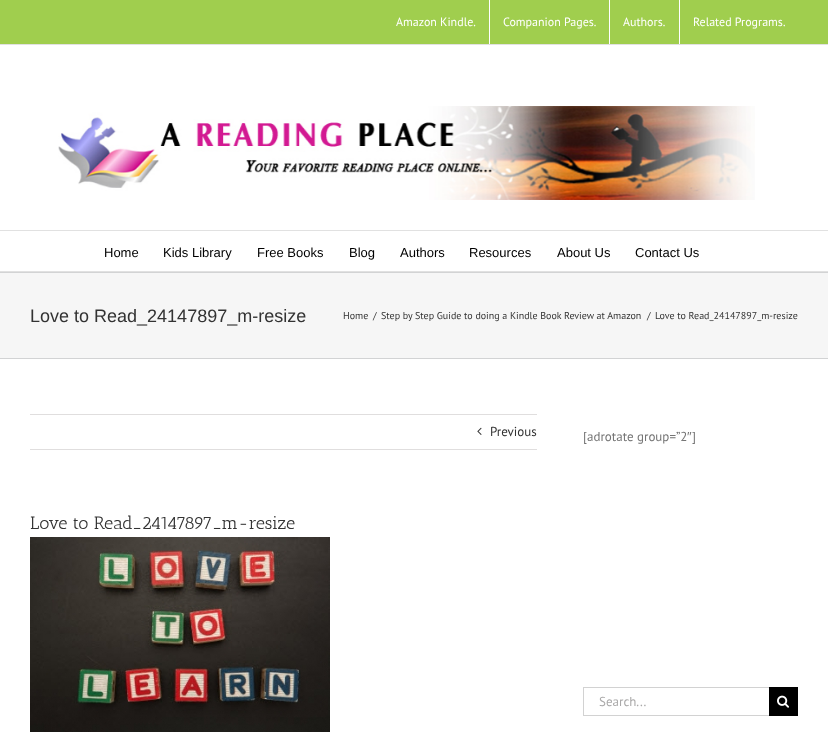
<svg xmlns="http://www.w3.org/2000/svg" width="828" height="732">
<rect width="100%" height="100%" fill="#fff"/>
<rect width="828" height="44" fill="#a0ce4e"/>
<rect y="44" width="828" height="1" fill="#e1e1e1"/>
<text x="396" y="26" style="font-family:PT Sans;font-size:12px;fill:#fff">Amazon Kindle.</text>
<rect x="489" width="1" height="44" fill="#fff"/>
<text x="503" y="26" style="font-family:PT Sans;font-size:12px;fill:#fff">Companion Pages.</text>
<rect x="609" width="1" height="44" fill="#fff"/>
<text x="623" y="26" style="font-family:PT Sans;font-size:12px;fill:#fff">Authors.</text>
<rect x="679" width="1" height="44" fill="#fff"/>
<text x="693" y="26" style="font-family:PT Sans;font-size:12px;fill:#fff">Related Programs.</text>
<rect y="230" width="828" height="1" fill="#e1e1e1"/>
<image x="58" y="106" width="697" height="94" href="media/1.png"/>
<rect y="271" width="828" height="1" fill="#e1e1e1"/>
<text x="104" y="257" style="font-family:Liberation Sans;font-size:13px;fill:#000">Home</text>
<text x="163" y="257" style="font-family:Liberation Sans;font-size:13px;fill:#000">Kids Library</text>
<text x="257" y="257" style="font-family:Liberation Sans;font-size:13px;fill:#000">Free Books</text>
<text x="349" y="257" style="font-family:Liberation Sans;font-size:13px;fill:#000">Blog</text>
<text x="400" y="257" style="font-family:Liberation Sans;font-size:13px;fill:#000">Authors</text>
<text x="469" y="257" style="font-family:Liberation Sans;font-size:13px;fill:#000">Resources</text>
<text x="557" y="257" style="font-family:Liberation Sans;font-size:13px;fill:#000">About Us</text>
<text x="635" y="257" style="font-family:Liberation Sans;font-size:13px;fill:#000">Contact Us</text>
<rect y="273" width="828" height="85" fill="#f6f6f6"/>
<rect y="272" width="828" height="1" fill="#d2d3d4"/>
<rect y="358" width="828" height="1" fill="#d2d3d4"/>
<text x="30" y="322" style="font-family:Liberation Sans;font-size:18px;fill:#333">Love to Read_24147897_m-resize</text>
<text x="343" y="319" style="font-family:PT Sans;font-size:10px;fill:#333">Home</text>
<text x="373" y="319" style="font-family:PT Sans;font-size:10px;fill:#333">/</text>
<text x="381" y="319" style="font-family:PT Sans;font-size:10px;fill:#333">Step by Step Guide to doing a Kindle Book Review at Amazon</text>
<text x="647" y="319" style="font-family:PT Sans;font-size:10px;fill:#333">/</text>
<text x="655" y="319" style="font-family:PT Sans;font-size:10px;fill:#333">Love to Read_24147897_m-resize</text>
<rect x="30" y="414" width="507" height="1" fill="#e0dede"/>
<rect x="30" y="449" width="507" height="1" fill="#e0dede"/>
<image x="477" y="427" width="5" height="8" href="media/2.png"/>
<text x="490" y="436" style="font-family:PT Sans;font-size:13px;fill:#333">Previous</text>
<text x="30" y="529" style="font-family:Antic Slab;font-size:18px;fill:#333">Love to Read_24147897_m-resize</text>
<image x="30" y="537" width="300" height="195" href="media/3.png"/>
<text x="583" y="441" style="font-family:PT Sans;font-size:13px;fill:#747474">[adrotate group=”2</text>
<text x="687" y="441" style="font-family:Liberation Sans;font-size:13px;fill:#747474">″</text>
<text x="692" y="441" style="font-family:PT Sans;font-size:13px;fill:#747474">]</text>
<rect x="583" y="687" width="186" height="1" fill="#d2d2d2"/>
<rect x="583" y="715" width="186" height="1" fill="#d2d2d2"/>
<rect x="583" y="687" width="1" height="29" fill="#d2d2d2"/>
<text x="599" y="706" style="font-family:PT Sans;font-size:13px;fill:#aaa9a9">Search...</text>
<rect x="769" y="687" width="29" height="29" fill="#000"/>
<image x="777" y="695" width="12" height="13" href="media/4.png"/>
</svg>
